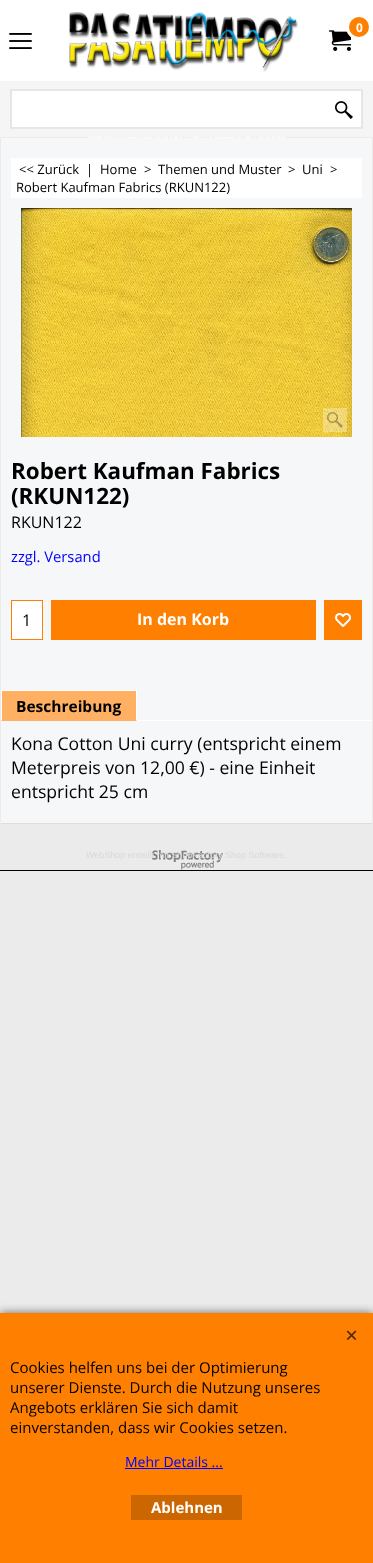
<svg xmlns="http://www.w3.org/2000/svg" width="373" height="1563">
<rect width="100%" height="100%" fill="#ebebeb"/>
<image x="88" y="137" width="198" height="1" href="media/1.png"/>
<rect width="373" height="81" fill="#fff"/>
<image x="69" y="12" width="229" height="60" href="media/2.png"/>
<image x="329" y="30" width="22" height="21" href="media/3.png"/>
<circle cx="359" cy="27" r="11.5" fill="#ff7f00" stroke="#fff" stroke-width="3"/>
<text x="356" y="32" style="font-family:Open Sans;font-size:12px;font-weight:bold;fill:#fff">0</text>
<image x="9" y="33" width="23" height="16" href="media/4.png"/>
<rect y="81" width="373" height="56" fill="#f5f5f6"/>
<rect x="11" y="90" width="351" height="38" fill="#fff" stroke="#e6e6e6" stroke-width="2"/>
<image x="335" y="101" width="18" height="18" href="media/5.png"/>
<rect x="1" y="138" width="371" height="685" fill="#f6f7f8"/>
<rect x="11" y="158" width="351" height="40" fill="#fff"/>
<text x="19" y="174" style="font-family:Open Sans;font-size:13px;fill:#000">&lt;&lt; Zurück</text>
<text x="86" y="174" style="font-family:Open Sans;font-size:13px;fill:#000">|</text>
<text x="100" y="174" style="font-family:Open Sans;font-size:13px;fill:#000">Home</text>
<text x="144" y="174" style="font-family:Open Sans;font-size:13px;fill:#000">&gt;</text>
<text x="158" y="174" style="font-family:Open Sans;font-size:13px;fill:#000">Themen und Muster</text>
<text x="288" y="174" style="font-family:Open Sans;font-size:13px;fill:#000">&gt;</text>
<text x="302" y="174" style="font-family:Open Sans;font-size:13px;fill:#000">Uni</text>
<text x="330" y="174" style="font-family:Open Sans;font-size:13px;fill:#000">&gt;</text>
<text x="16" y="192" style="font-family:Open Sans;font-size:13px;fill:#000">Robert Kaufman Fabrics (RKUN122)</text>
<image x="21" y="208" width="331" height="229" href="media/6.png"/>
<rect x="323" y="408" width="24" height="24" fill="#ffffff4d"/>
<image x="327" y="412" width="16" height="16" href="media/7.png"/>
<text x="11" y="479" style="font-family:Open Sans;font-size:22.4px;font-weight:bold;fill:#000">Robert Kaufman Fabrics</text>
<text x="11" y="504" style="font-family:Open Sans;font-size:22.4px;font-weight:bold;fill:#000">(RKUN122)</text>
<text x="11" y="528" style="font-family:Open Sans;font-size:16px;fill:#000">RKUN122</text>
<text x="11" y="562" style="font-family:Open Sans;font-size:14.75px;fill:#00f">zzgl. Versand</text>
<rect x="11" y="600" width="32" height="40" fill="#ff7f00"/>
<rect x="12" y="601" width="30" height="38" fill="#fff"/>
<text x="22" y="626" style="font-family:Open Sans;font-size:16px;fill:#000">1</text>
<rect x="51" y="600" width="265" height="40" fill="#ff7f00"/>
<text x="137" y="625" style="font-family:Open Sans;font-size:16px;font-weight:bold;fill:#fff">In den Korb</text>
<rect x="324" y="600" width="38" height="40" fill="#ff7f00"/>
<image x="335" y="613" width="16" height="14" href="media/8.png"/>
<rect x="1" y="691" width="136" height="30" fill="#ffb062"/>
<rect x="1" y="690" width="136" height="1" fill="#fff"/>
<path d="M137 690v31l-1-1v-29z" fill="#fff"/>
<path d="M1 721v-31l1 1v29z" fill="#fff"/>
<text x="16" y="712" style="font-family:Open Sans;font-size:15.5px;font-weight:bold;fill:#000">Beschreibung</text>
<rect x="137" y="720" width="235" height="1" fill="#fff"/>
<text x="11" y="750" style="font-family:Open Sans;font-size:17.6px;fill:#000">Kona Cotton Uni curry (entspricht einem</text>
<text x="11" y="774" style="font-family:Open Sans;font-size:17.6px;fill:#000">Meterpreis von 12,00 €) - eine Einheit</text>
<text x="11" y="798" style="font-family:Open Sans;font-size:17.6px;fill:#000">entspricht 25 cm</text>
<rect x="1" y="823" width="371" height="1" fill="#dedede"/>
<image x="152" y="850" width="71" height="20" href="media/9.png"/>
<text x="86" y="858" style="font-family:Liberation Sans;font-size:9px;fill:#d8d8d8">WebShop erstellt mit ShopFactory Shop Software.</text>
<rect y="870" width="373" height="1" fill="#000"/>
<rect y="1313" width="373" height="250" fill="#666" filter="blur(5px)"/>
<rect y="1313" width="373" height="250" fill="#ff7f00"/>
<image x="346" y="1330" width="11" height="10" href="media/10.png"/>
<text x="10" y="1373" style="font-family:Open Sans;font-size:15px;fill:#000">Cookies helfen uns bei der Optimierung</text>
<text x="10" y="1393" style="font-family:Open Sans;font-size:15px;fill:#000">unserer Dienste. Durch die Nutzung unseres</text>
<text x="10" y="1413" style="font-family:Open Sans;font-size:15px;fill:#000">Angebots erklären Sie sich damit</text>
<text x="10" y="1433" style="font-family:Open Sans;font-size:15px;fill:#000">einverstanden, dass wir Cookies setzen.</text>
<text x="125" y="1467" style="font-family:Open Sans;font-size:14px;fill:#00f">Mehr Details ...</text>
<rect x="125" y="1468" width="98" height="1" fill="#00f"/>
<rect x="131" y="1495" width="111" height="25" fill="#c60"/>
<text x="151" y="1513" style="font-family:Open Sans;font-size:15px;font-weight:bold;fill:#fff">Ablehnen</text>
</svg>
